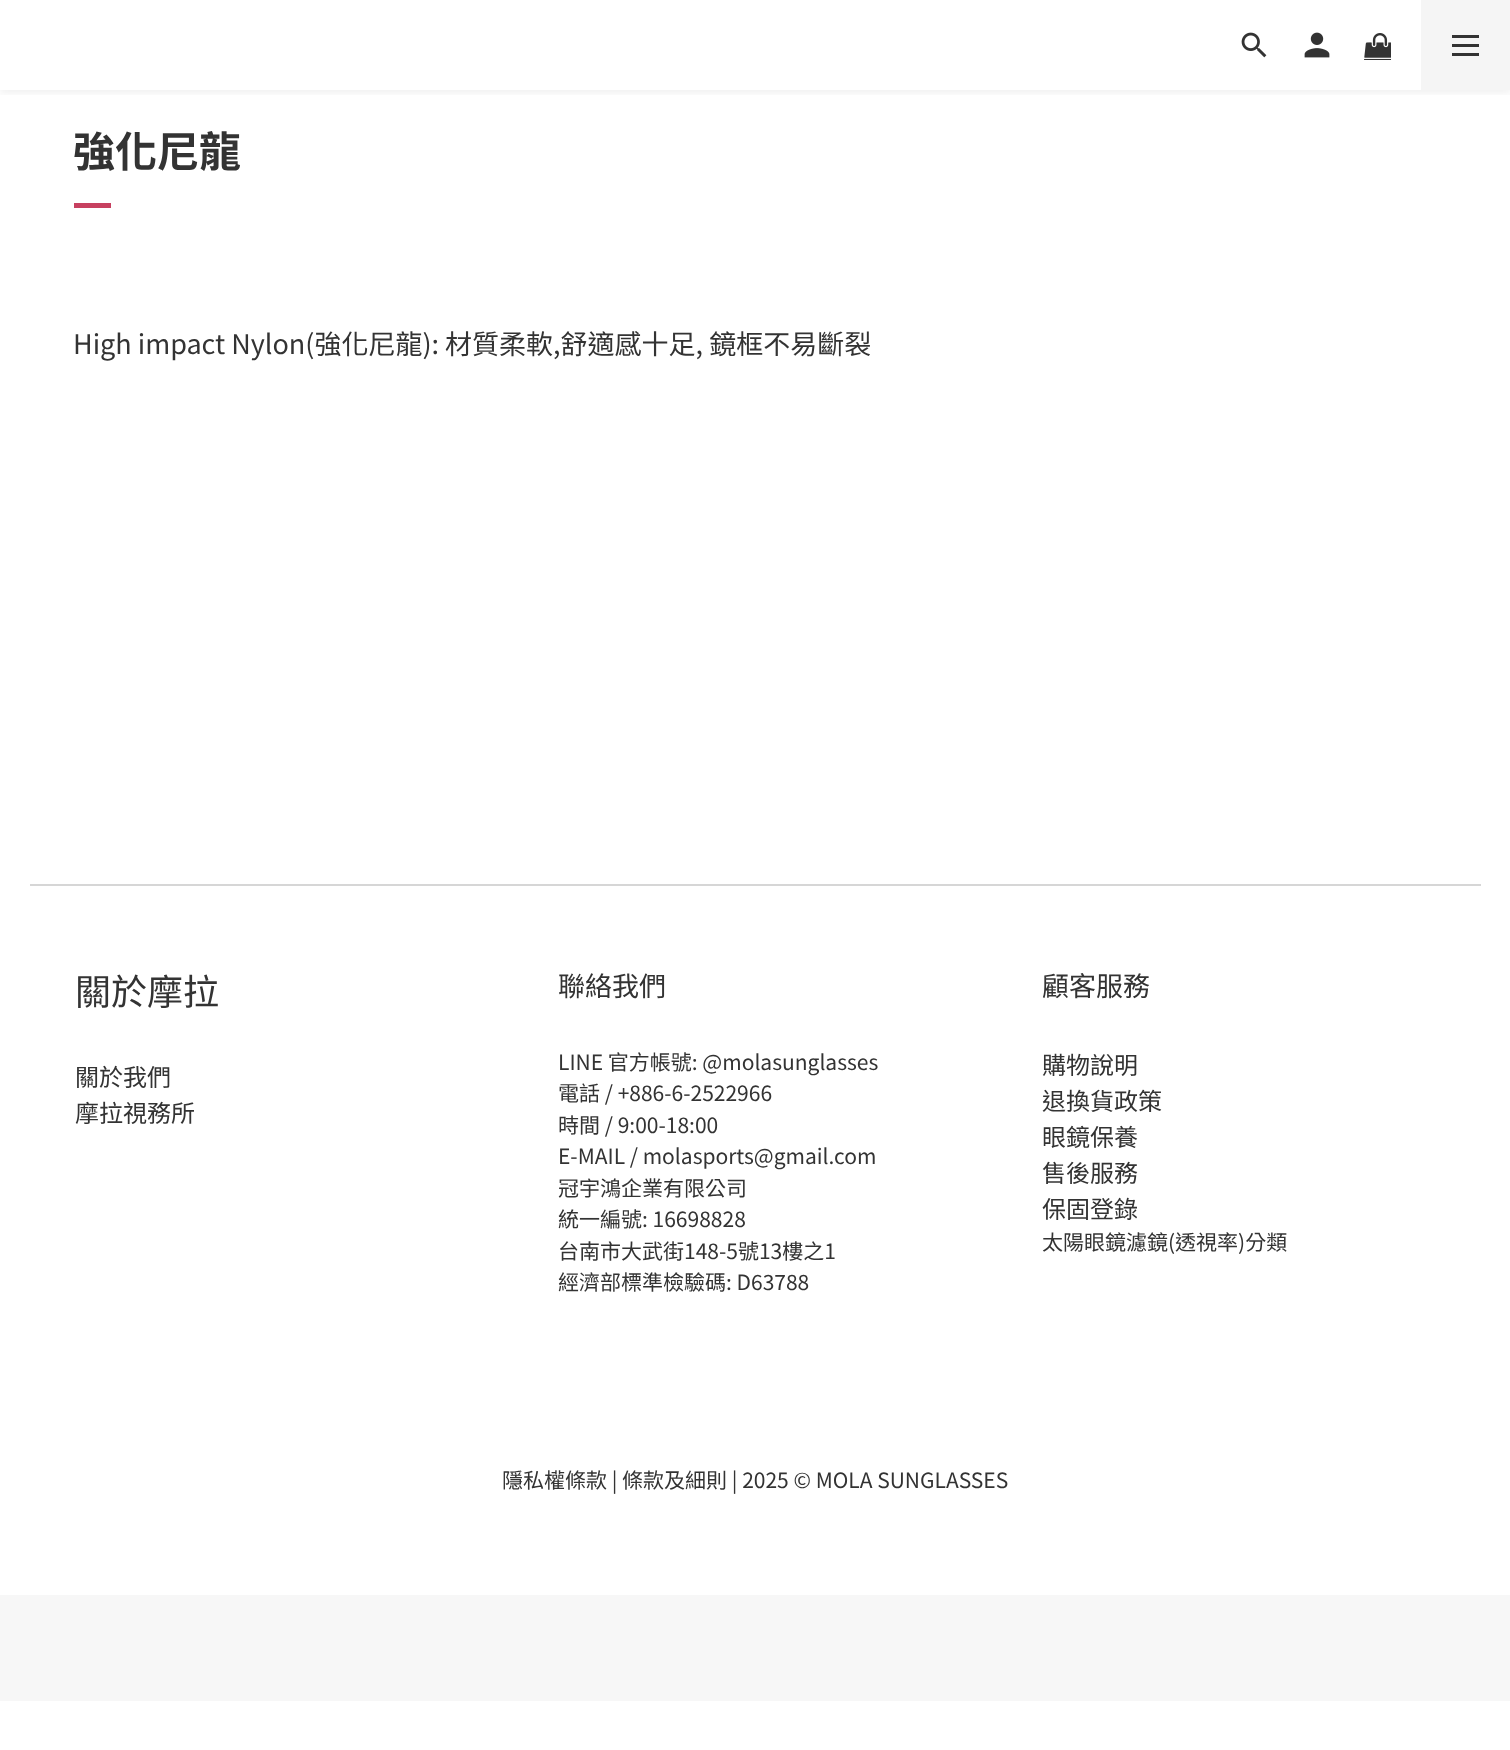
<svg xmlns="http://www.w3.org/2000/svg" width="1510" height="1750">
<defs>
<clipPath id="clip1"><rect x="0" y="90" width="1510" height="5"/></clipPath>
</defs>
<rect width="100%" height="100%" fill="#fff"/>
<g clip-path="url(#clip1)">
<rect y="3" width="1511" height="90" fill="#0000000f" filter="blur(4.5px)"/>
</g>
<image x="1241" y="32" width="26" height="26" href="media/1.png"/>
<image x="1304" y="32" width="26" height="26" href="media/2.png"/>
<image x="1364" y="33" width="27" height="27" href="media/3.png"/>
<rect x="1421" width="89" height="90" fill="#f5f5f5"/>
<rect x="1452" y="44" width="27" height="3" fill="#333"/>
<rect x="1452" y="35" width="27" height="3" fill="#333"/>
<rect x="1452" y="53" width="27" height="3" fill="#333"/>
<text x="73" y="167" style="font-family:Noto Sans TC;font-size:42px;font-weight:bold;fill:#333">強化尼龍</text>
<rect x="74" y="203" width="37" height="5" fill="#c74060"/>
<text x="73" y="354" style="font-family:Noto Sans TC;font-size:27px;fill:#333">High impact Nylon(強化尼龍): 材質柔軟,舒適感十足, 鏡框不易斷裂</text>
<rect x="30" y="884" width="1451" height="2" fill="#d6d6d6"/>
<text x="75" y="1005" style="font-family:Noto Sans TC;font-size:36px;fill:#333">關於摩拉</text>
<text x="75" y="1086" style="font-family:Noto Sans TC;font-size:24px;fill:#333">關於我們</text>
<text x="75" y="1122" style="font-family:Noto Sans TC;font-size:24px;fill:#333">摩拉視務所</text>
<text x="558" y="996" style="font-family:Noto Sans TC;font-size:27px;fill:#333">聯絡我們</text>
<text x="558" y="1070" style="font-family:Noto Sans TC;font-size:21px;fill:#333">LINE 官方帳號: @molasunglasses</text>
<text x="558" y="1101" style="font-family:Noto Sans TC;font-size:21px;fill:#333">電話 / +886-6-2522966</text>
<text x="558" y="1133" style="font-family:Noto Sans TC;font-size:21px;fill:#333">時間 / 9:00-18:00</text>
<text x="558" y="1164" style="font-family:Noto Sans TC;font-size:21px;fill:#333">E-MAIL / molasports@gmail.com</text>
<text x="558" y="1196" style="font-family:Noto Sans TC;font-size:21px;fill:#333">冠宇鴻企業有限公司</text>
<text x="558" y="1227" style="font-family:Noto Sans TC;font-size:21px;fill:#333">統一編號: 16698828</text>
<text x="558" y="1259" style="font-family:Noto Sans TC;font-size:21px;fill:#333">台南市大武街148-5號13樓之1</text>
<text x="558" y="1290" style="font-family:Noto Sans TC;font-size:21px;fill:#333">經濟部標準檢驗碼: D63788</text>
<text x="1042" y="996" style="font-family:Noto Sans TC;font-size:27px;fill:#333">顧客服務</text>
<text x="1042" y="1074" style="font-family:Noto Sans TC;font-size:24px;fill:#333">購物說明</text>
<text x="1042" y="1110" style="font-family:Noto Sans TC;font-size:24px;fill:#333">退換貨政策</text>
<text x="1042" y="1146" style="font-family:Noto Sans TC;font-size:24px;fill:#333">眼鏡保養</text>
<text x="1042" y="1182" style="font-family:Noto Sans TC;font-size:24px;fill:#333">售後服務</text>
<text x="1042" y="1218" style="font-family:Noto Sans TC;font-size:24px;fill:#333">保固登錄</text>
<text x="1042" y="1250" style="font-family:Noto Sans TC;font-size:21px;fill:#333">太陽眼鏡濾鏡(透視率)分類</text>
<text x="502" y="1488" style="font-family:Noto Sans TC;font-size:21px;fill:#333">隱私權條款 | 條款及細則 | 2025 © MOLA SUNGLASSES</text>
<rect y="1595" width="1510" height="106" fill="#f7f7f7"/>
</svg>
